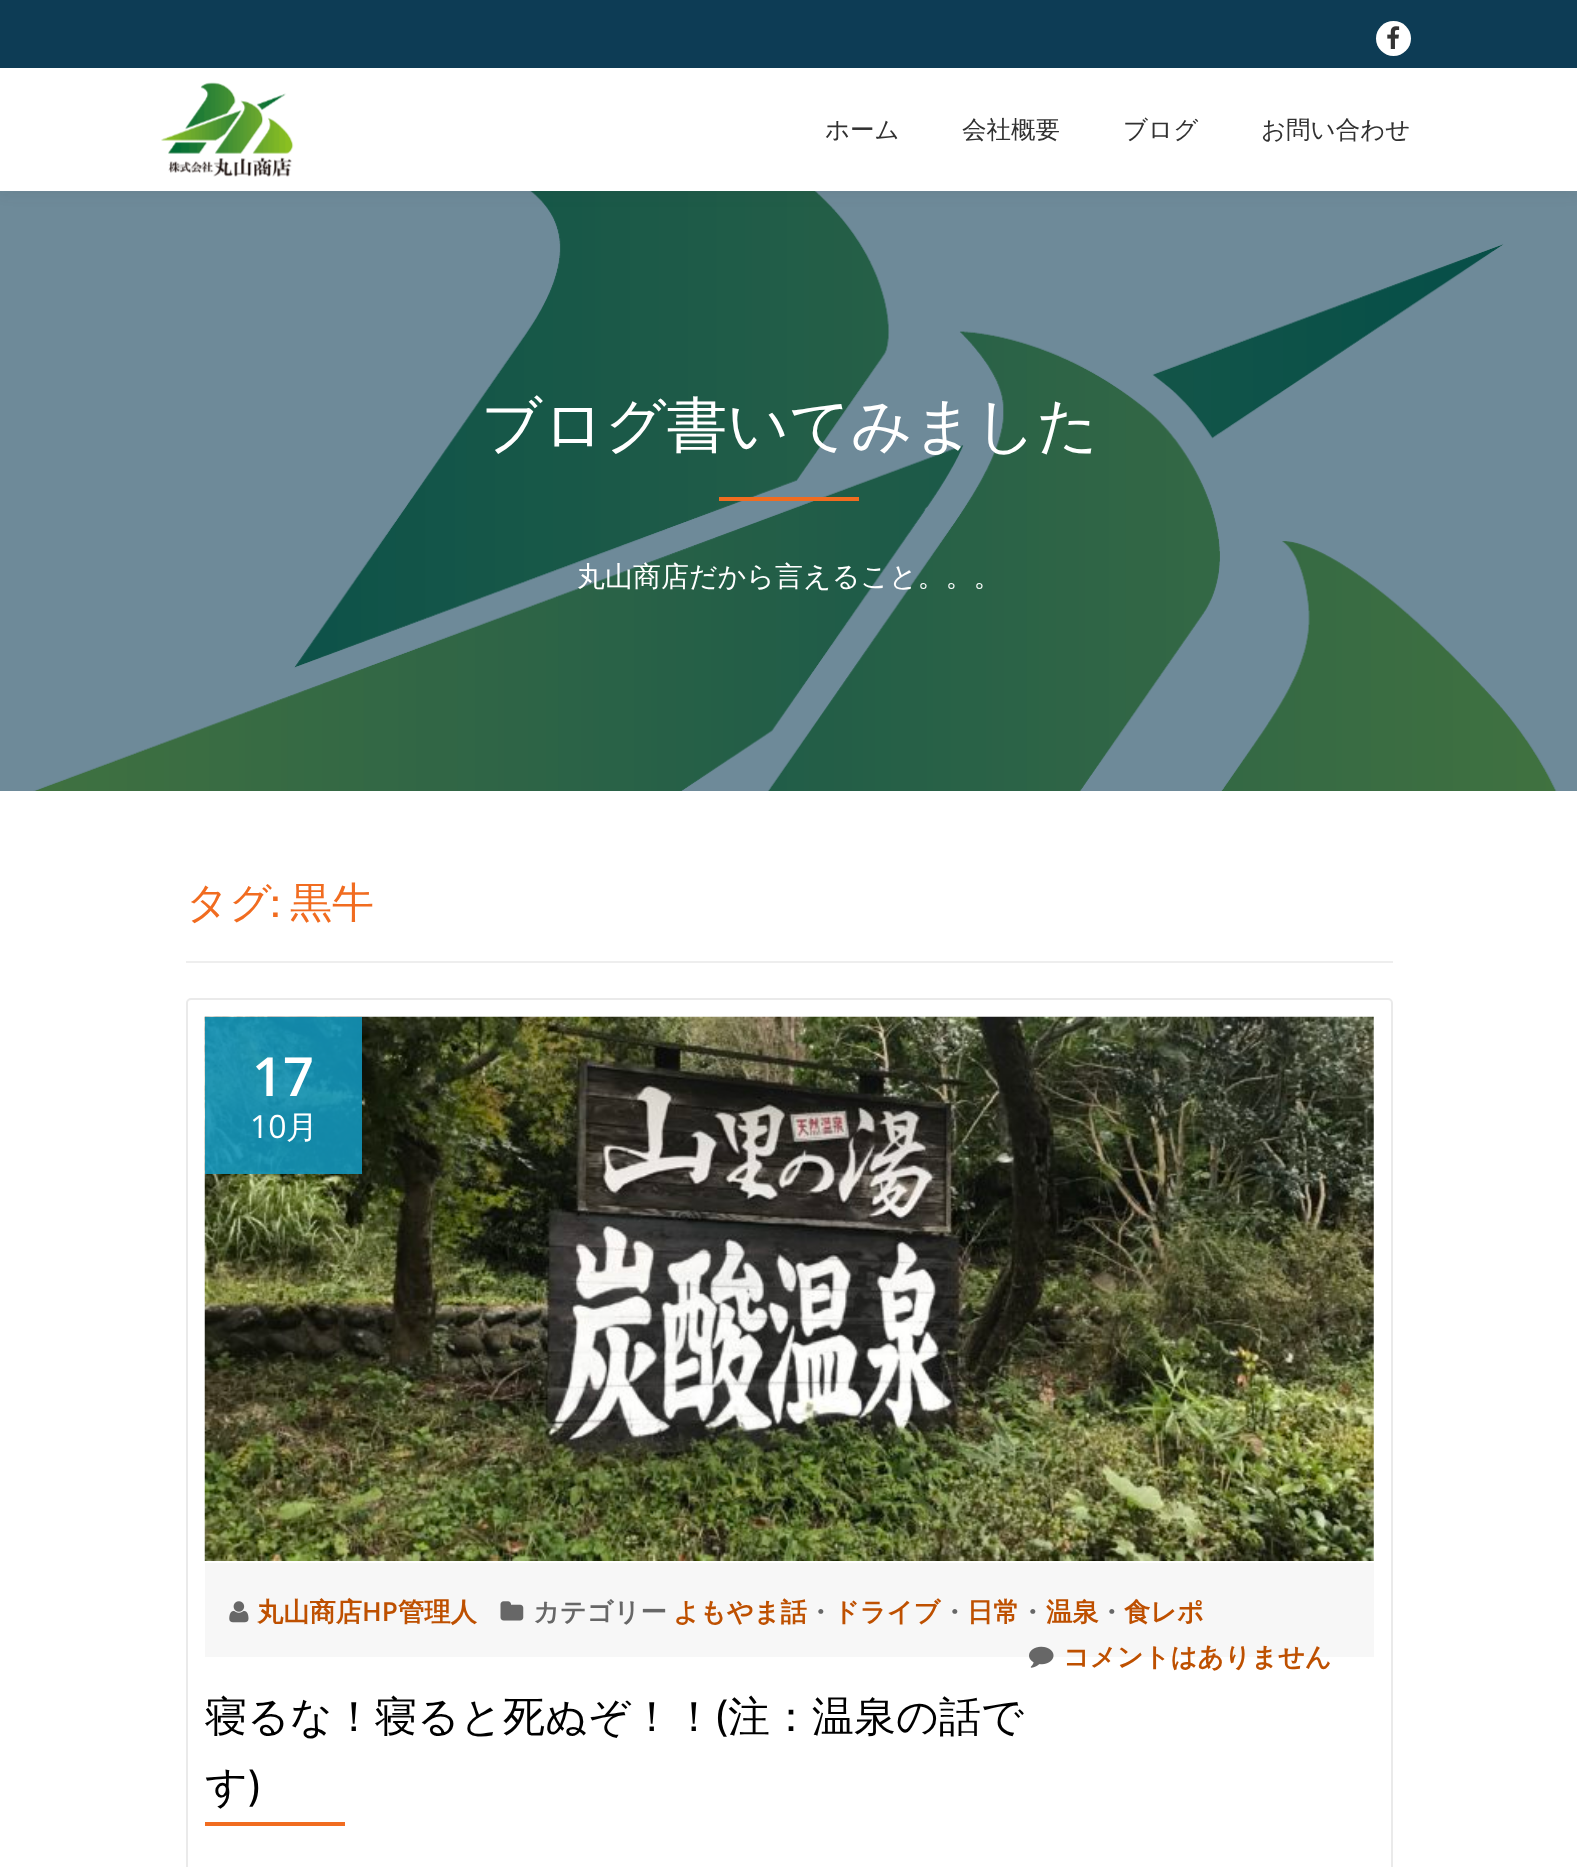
<svg xmlns="http://www.w3.org/2000/svg" width="1577" height="1867">
<rect width="100%" height="100%" fill="#fff"/>
<rect y="191" width="1577" height="600" fill="#6e8a99"/>
<image x="33" y="191" width="1524" height="600" href="media/3.png"/>
<rect y="4" width="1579" height="190" fill="#32323214" filter="blur(7px)"/>
<rect y="68" width="1577" height="123" fill="#fff"/>
<rect width="1577" height="68" fill="#0d3c55"/>
<circle cx="1393.5" cy="38.5" r="17.5" fill="#fff"/>
<image x="1387" y="26" width="13" height="23" href="media/1.png"/>
<image x="161" y="82" width="133" height="95" href="media/2.png"/>
<text x="825" y="138" style="font-family:WenQuanYi Zen Hei;font-size:24.5px;font-weight:500;fill:#313131">ホーム</text>
<text x="962" y="138" style="font-family:WenQuanYi Zen Hei;font-size:24.5px;font-weight:500;fill:#313131">会社概要</text>
<text x="1123" y="138" style="font-family:WenQuanYi Zen Hei;font-size:24.5px;font-weight:500;fill:#313131">ブログ</text>
<text x="1261" y="138" style="font-family:WenQuanYi Zen Hei;font-size:24.5px;font-weight:500;fill:#313131">お問い合わせ</text>
<text x="481" y="446" style="font-family:WenQuanYi Zen Hei;font-size:60.5px;font-weight:500;fill:#fff">ブログ書いてみました</text>
<rect x="719" y="497" width="140" height="4" fill="#f16c20"/>
<text x="577" y="586" style="font-family:WenQuanYi Zen Hei;font-size:28px;font-weight:500;fill:#fff">丸山商店だから言えること。。。</text>
<rect x="186" y="961" width="1207" height="2" fill="#eee"/>
<text x="186" y="917" style="font-family:WenQuanYi Zen Hei;font-size:42px;font-weight:500;fill:#f16c20">タグ</text>
<text x="271" y="917" style="font-family:Cabin;font-size:42px;fill:#f16c20">:</text>
<text x="290" y="917" style="font-family:WenQuanYi Zen Hei;font-size:42px;font-weight:500;fill:#f16c20">黒牛</text>
<rect x="187" y="999" width="1205" height="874" rx="4" fill="none" stroke="#eaeaea" stroke-width="2"/>
<image x="204" y="1016" width="1170" height="545" href="media/4.png"/>
<rect x="205" y="1017" width="157" height="157" fill="#1395bae6"/>
<text x="252" y="1096" style="font-family:Open Sans;font-size:54px;font-weight:600;fill:#fff">17</text>
<text x="250" y="1138" style="font-family:Open Sans;font-size:32px;fill:#fff">10</text>
<text x="286" y="1138" style="font-family:WenQuanYi Zen Hei;font-size:32px;font-weight:500;fill:#fff">月</text>
<rect x="205" y="1563" width="1169" height="94" fill="#f7f7f7"/>
<image x="229" y="1601" width="20" height="22" href="media/5.png"/>
<text x="257" y="1621" style="font-family:WenQuanYi Zen Hei;font-size:26.25px;font-weight:bold;fill:#be5000">丸山商店</text>
<text x="362" y="1621" style="font-family:Open Sans;font-size:26.25px;font-weight:600;fill:#be5000">HP</text>
<text x="398" y="1621" style="font-family:WenQuanYi Zen Hei;font-size:26.25px;font-weight:bold;fill:#be5000">管理人</text>
<image x="500" y="1601" width="24" height="20" href="media/6.png"/>
<text x="533" y="1621" style="font-family:WenQuanYi Zen Hei;font-size:26.25px;font-weight:bold;fill:#676767">カテゴリー</text>
<text x="673" y="1621" style="font-family:WenQuanYi Zen Hei;font-size:26.25px;font-weight:bold;fill:#be5000">よもやま話</text>
<text x="807" y="1621" style="font-family:WenQuanYi Zen Hei;font-size:26.25px;font-weight:bold;fill:#676767">・</text>
<text x="833" y="1621" style="font-family:WenQuanYi Zen Hei;font-size:26.25px;font-weight:bold;fill:#be5000">ドライブ</text>
<text x="941" y="1621" style="font-family:WenQuanYi Zen Hei;font-size:26.25px;font-weight:bold;fill:#676767">・</text>
<text x="967" y="1621" style="font-family:WenQuanYi Zen Hei;font-size:26.25px;font-weight:bold;fill:#be5000">日常</text>
<text x="1019" y="1621" style="font-family:WenQuanYi Zen Hei;font-size:26.25px;font-weight:bold;fill:#676767">・</text>
<text x="1046" y="1621" style="font-family:WenQuanYi Zen Hei;font-size:26.25px;font-weight:bold;fill:#be5000">温泉</text>
<text x="1098" y="1621" style="font-family:WenQuanYi Zen Hei;font-size:26.25px;font-weight:bold;fill:#676767">・</text>
<text x="1124" y="1621" style="font-family:WenQuanYi Zen Hei;font-size:26.25px;font-weight:bold;fill:#be5000">食レポ</text>
<image x="1029" y="1646" width="25" height="22" href="media/7.png"/>
<text x="1063" y="1666" style="font-family:WenQuanYi Zen Hei;font-size:26.25px;font-weight:bold;fill:#be5000">コメントはありません</text>
<text x="205" y="1731" style="font-family:WenQuanYi Zen Hei;font-size:42px;font-weight:500;fill:#000">寝るな！寝ると死ぬぞ！！</text>
<text x="715" y="1731" style="font-family:Cabin;font-size:42px;fill:#000">(</text>
<text x="728" y="1731" style="font-family:WenQuanYi Zen Hei;font-size:42px;font-weight:500;fill:#000">注：温泉の話で</text>
<text x="205" y="1801" style="font-family:WenQuanYi Zen Hei;font-size:42px;font-weight:500;fill:#000">す</text>
<text x="248" y="1801" style="font-family:Cabin;font-size:42px;fill:#000">)</text>
<rect x="205" y="1822" width="140" height="4" fill="#f16c20"/>
</svg>
